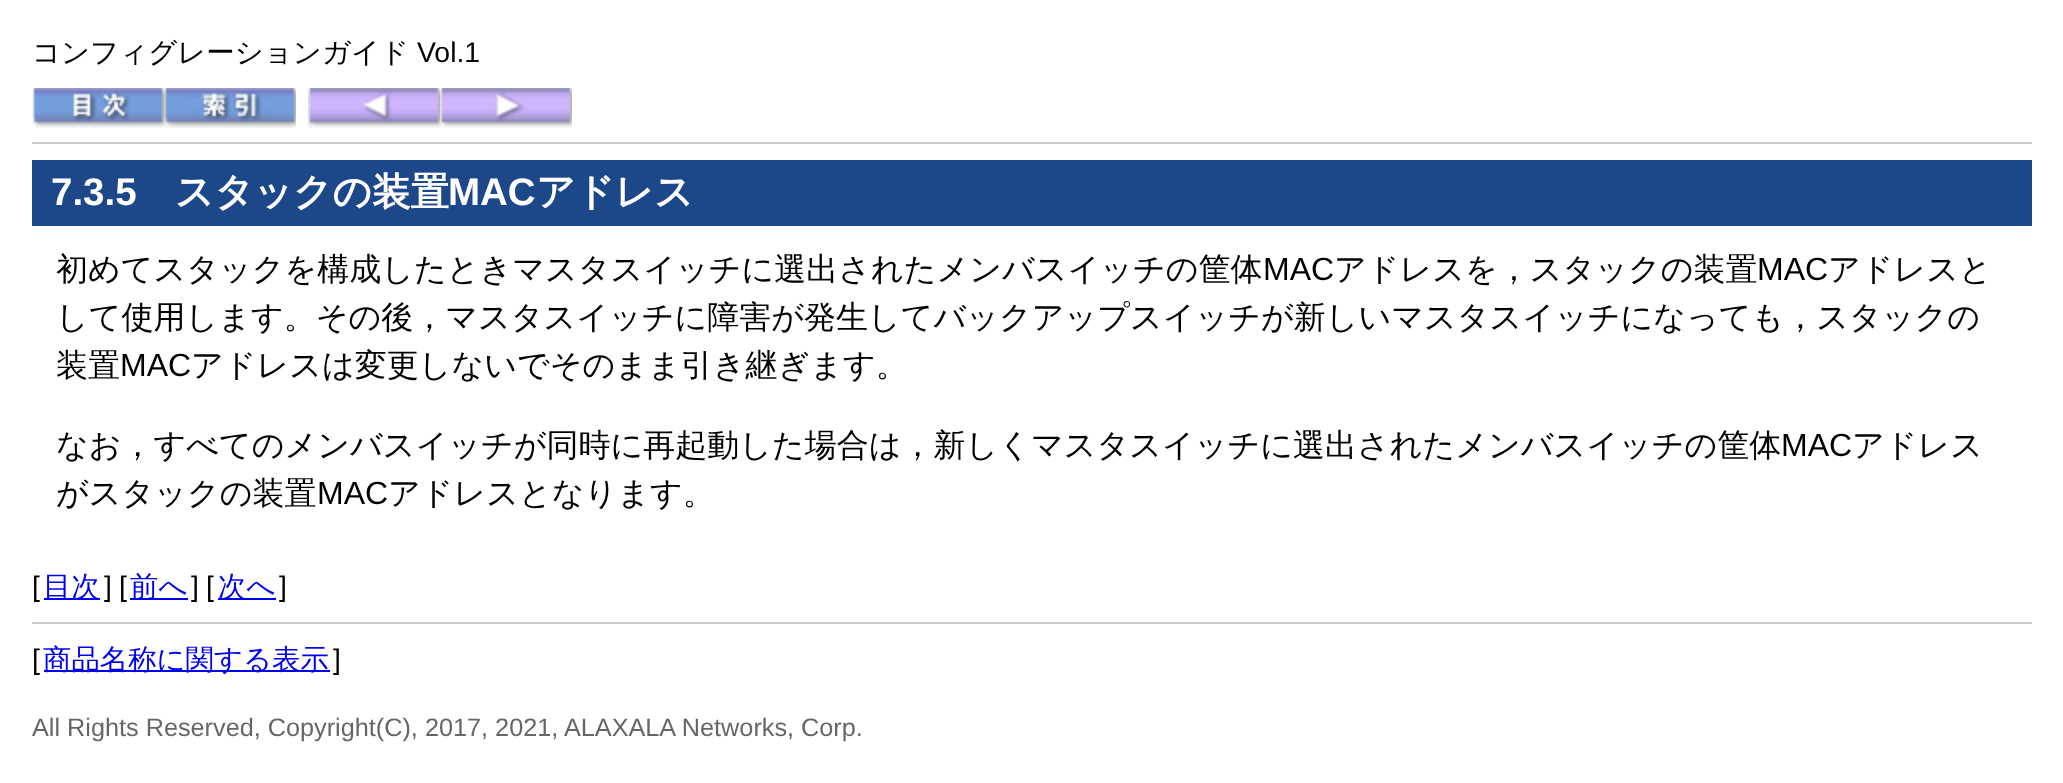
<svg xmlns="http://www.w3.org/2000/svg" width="2063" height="783">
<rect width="100%" height="100%" fill="#fff"/>
<rect x="32" y="142" width="2000" height="2" fill="#ccc"/>
<text x="32" y="62" style="font-family:WenQuanYi Zen Hei;font-size:28.4px;font-weight:500;fill:#000">コンフィグレーションガイド</text>
<text x="417" y="62" style="font-family:Liberation Sans;font-size:28.4px;fill:#000">Vol.1</text>
<image x="32" y="88" width="132" height="40" href="media/1.png"/>
<image x="164" y="88" width="132" height="40" href="media/2.png"/>
<image x="308" y="88" width="132" height="40" href="media/3.png"/>
<image x="440" y="88" width="132" height="40" href="media/4.png"/>
<rect x="32" y="160" width="2000" height="66" fill="#1c4789"/>
<text x="51" y="205" style="font-family:Liberation Sans;font-size:38.5px;font-weight:bold;fill:#fff">7.3.5</text>
<text x="175" y="205" style="font-family:WenQuanYi Zen Hei;font-size:38.5px;font-weight:bold;fill:#fff">スタックの装置</text>
<text x="448" y="205" style="font-family:Liberation Sans;font-size:38.5px;font-weight:bold;fill:#fff">MAC</text>
<text x="536" y="205" style="font-family:WenQuanYi Zen Hei;font-size:38.5px;font-weight:bold;fill:#fff">アドレス</text>
<text x="56" y="280" style="font-family:WenQuanYi Zen Hei;font-size:32px;font-weight:500;fill:#000">初めてスタックを構成したときマスタスイッチに選出されたメンバスイッチの筐体</text>
<text x="1263" y="280" style="font-family:Liberation Sans;font-size:32px;fill:#000">MAC</text>
<text x="1334" y="280" style="font-family:WenQuanYi Zen Hei;font-size:32px;font-weight:500;fill:#000">アドレスを，スタックの装置</text>
<text x="1757" y="280" style="font-family:Liberation Sans;font-size:32px;fill:#000">MAC</text>
<text x="1828" y="280" style="font-family:WenQuanYi Zen Hei;font-size:32px;font-weight:500;fill:#000">アドレスと</text>
<text x="56" y="328" style="font-family:WenQuanYi Zen Hei;font-size:32px;font-weight:500;fill:#000">して使用します。その後，マスタスイッチに障害が発生してバックアップスイッチが新しいマスタスイッチになっても，スタックの</text>
<text x="56" y="376" style="font-family:WenQuanYi Zen Hei;font-size:32px;font-weight:500;fill:#000">装置</text>
<text x="120" y="376" style="font-family:Liberation Sans;font-size:32px;fill:#000">MAC</text>
<text x="191" y="376" style="font-family:WenQuanYi Zen Hei;font-size:32px;font-weight:500;fill:#000">アドレスは変更しないでそのまま引き継ぎます。</text>
<text x="56" y="456" style="font-family:WenQuanYi Zen Hei;font-size:32px;font-weight:500;fill:#000">なお，すべてのメンバスイッチが同時に再起動した場合は，新しくマスタスイッチに選出されたメンバスイッチの筐体</text>
<text x="1781" y="456" style="font-family:Liberation Sans;font-size:32px;fill:#000">MAC</text>
<text x="1852" y="456" style="font-family:WenQuanYi Zen Hei;font-size:32px;font-weight:500;fill:#000">アドレス</text>
<text x="56" y="504" style="font-family:WenQuanYi Zen Hei;font-size:32px;font-weight:500;fill:#000">がスタックの装置</text>
<text x="317" y="504" style="font-family:Liberation Sans;font-size:32px;fill:#000">MAC</text>
<text x="388" y="504" style="font-family:WenQuanYi Zen Hei;font-size:32px;font-weight:500;fill:#000">アドレスとなります。</text>
<text x="32" y="596" style="font-family:Liberation Sans;font-size:28.4px;fill:#000">[</text>
<rect x="44" y="598" width="56" height="2" fill="#00e"/>
<text x="43" y="596" style="font-family:WenQuanYi Zen Hei;font-size:28.4px;font-weight:500;fill:#00e">目次</text>
<text x="104" y="596" style="font-family:Liberation Sans;font-size:28.4px;fill:#000">]</text>
<text x="119" y="596" style="font-family:Liberation Sans;font-size:28.4px;fill:#000">[</text>
<rect x="130" y="598" width="58" height="2" fill="#00e"/>
<text x="130" y="596" style="font-family:WenQuanYi Zen Hei;font-size:28.4px;font-weight:500;fill:#00e">前へ</text>
<text x="191" y="596" style="font-family:Liberation Sans;font-size:28.4px;fill:#000">]</text>
<text x="206" y="596" style="font-family:Liberation Sans;font-size:28.4px;fill:#000">[</text>
<rect x="218" y="598" width="58" height="2" fill="#00e"/>
<text x="218" y="596" style="font-family:WenQuanYi Zen Hei;font-size:28.4px;font-weight:500;fill:#00e">次へ</text>
<text x="279" y="596" style="font-family:Liberation Sans;font-size:28.4px;fill:#000">]</text>
<rect x="32" y="622" width="2000" height="2" fill="#ccc"/>
<text x="32" y="669" style="font-family:Liberation Sans;font-size:28.4px;fill:#000">[</text>
<rect x="44" y="670" width="286" height="2" fill="#00e"/>
<text x="43" y="669" style="font-family:WenQuanYi Zen Hei;font-size:28.4px;font-weight:500;fill:#00e">商品名称に関する表示</text>
<text x="333" y="669" style="font-family:Liberation Sans;font-size:28.4px;fill:#000">]</text>
<text x="32" y="736" style="font-family:Liberation Sans;font-size:25.25px;fill:#666">All Rights Reserved, Copyright(C), 2017, 2021, ALAXALA Networks, Corp.</text>
</svg>
